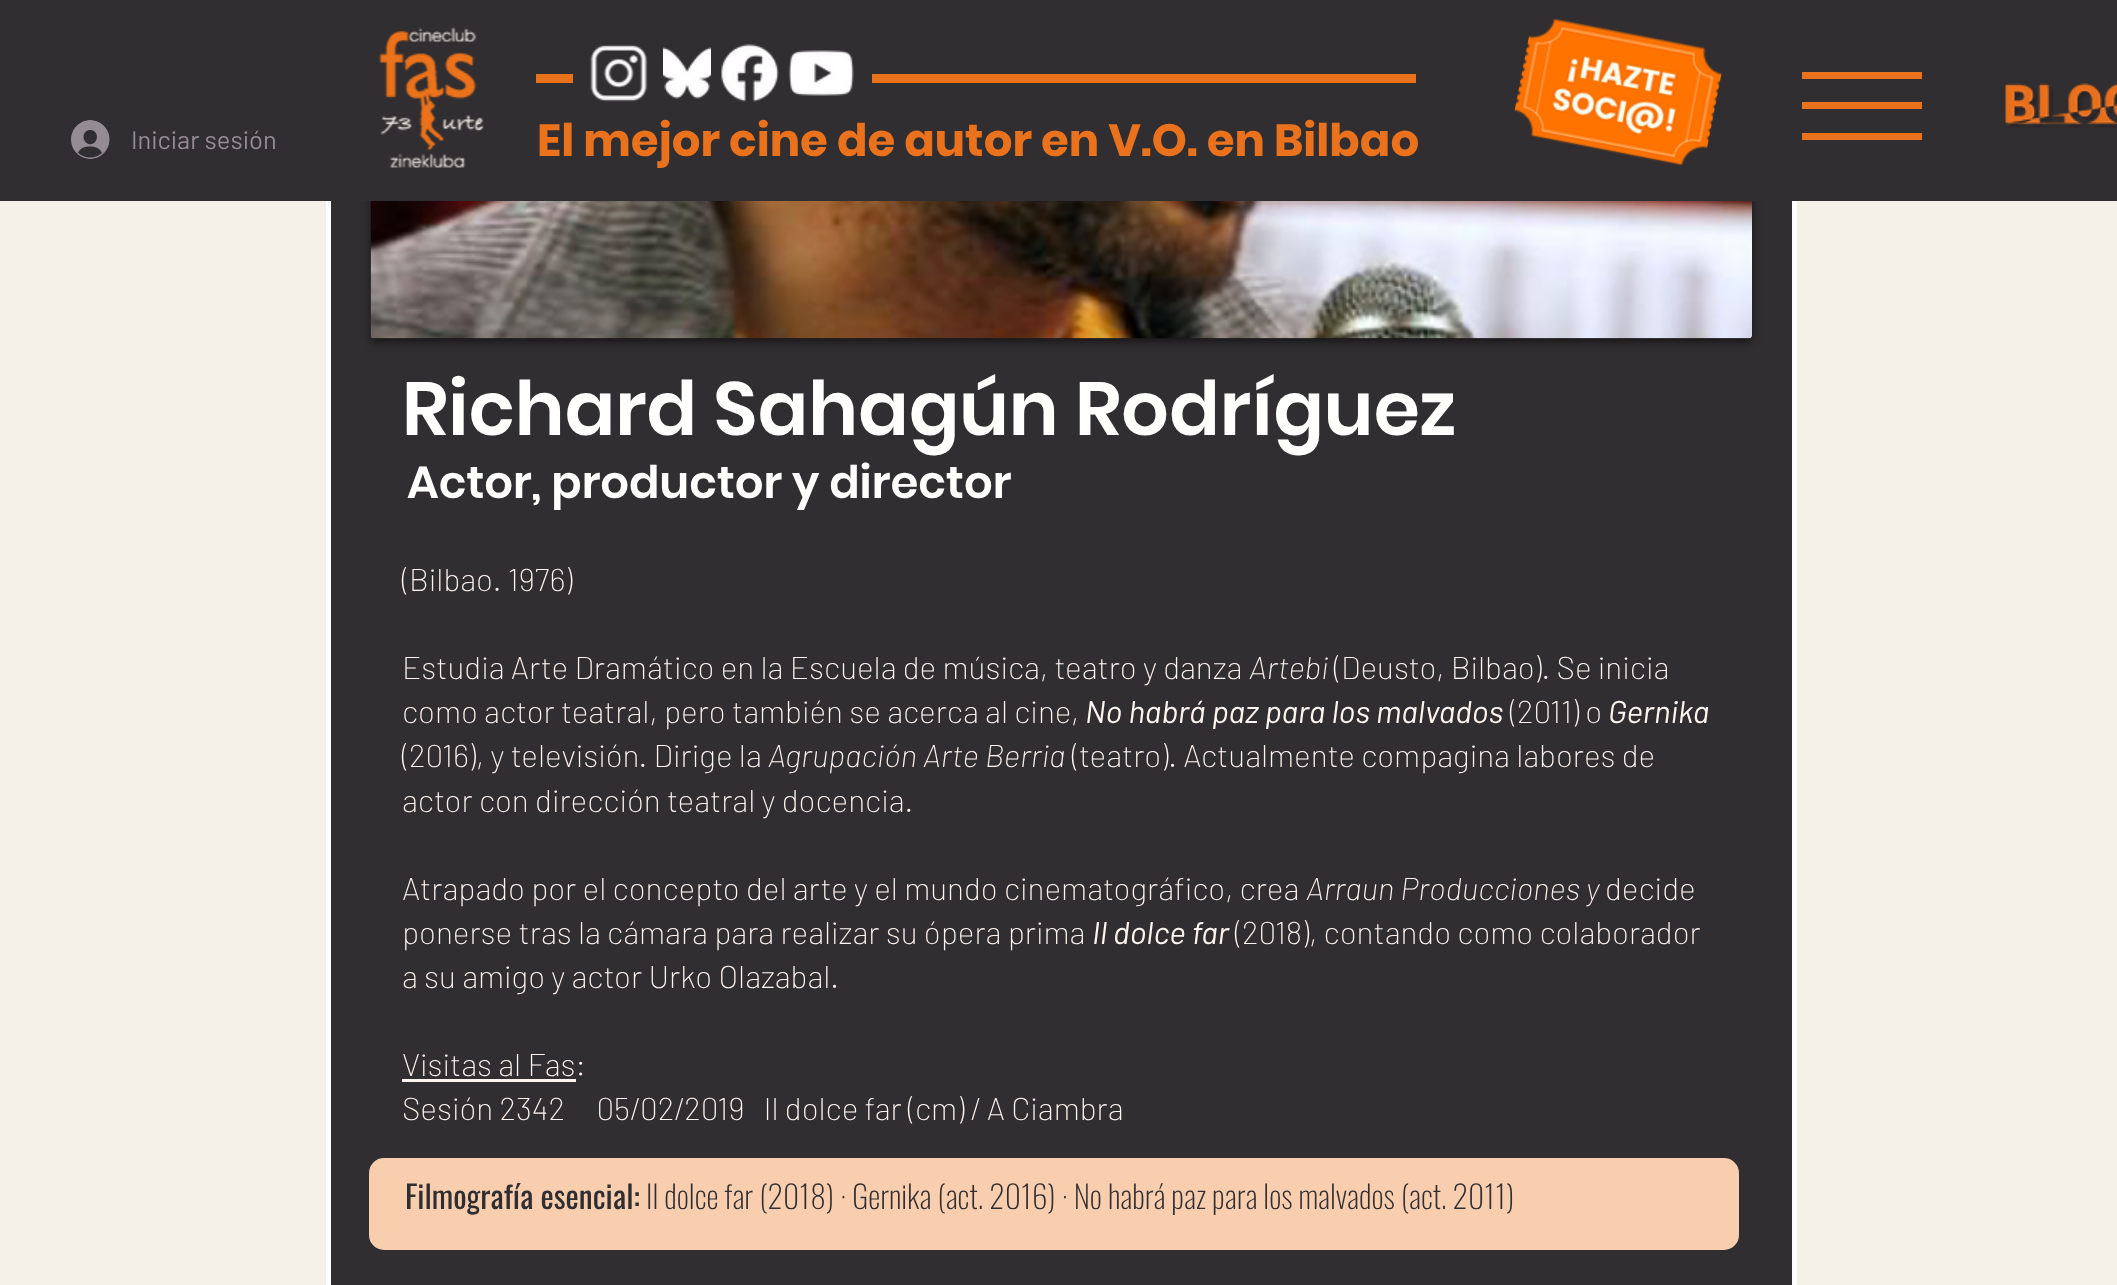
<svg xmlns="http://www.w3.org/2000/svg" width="2117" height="1285">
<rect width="100%" height="100%" fill="#f4f1e8"/>
<rect x="331" y="201" width="1461" height="1084" fill="#312e31"/>
<rect x="328.5" y="-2.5" width="1466" height="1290" fill="none" stroke="#fff" stroke-width="5"/>
<rect x="371" y="-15" width="1381" height="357" rx="3" fill="#00000087" filter="blur(4px)"/>
<rect width="2117" height="201" fill="#312e31"/>
<image x="378" y="27" width="106" height="141" href="media/1.png"/>
<rect x="536" y="74" width="37" height="9" fill="#eb721c"/>
<image x="590" y="44" width="58" height="58" href="media/2.png"/>
<image x="663" y="47" width="48" height="52" href="media/3.png"/>
<image x="721" y="44" width="58" height="58" href="media/4.png"/>
<image x="788" y="50" width="66" height="46" href="media/5.png"/>
<rect x="872" y="74" width="544" height="9" fill="#eb721c"/>
<image x="1514" y="18" width="208" height="148" href="media/6.png"/>
<rect x="1802" y="72" width="120" height="7" fill="#eb721c"/>
<rect x="1802" y="102" width="120" height="7" fill="#eb721c"/>
<rect x="1802" y="133" width="120" height="7" fill="#eb721c"/>
<image x="2005" y="83" width="112" height="45" href="media/7.png"/>
<image x="71" y="120" width="39" height="39" href="media/8.png"/>
<text x="131" y="149" style="font-family:Barlow;font-size:25.5px;fill:#948b93">Iniciar sesión</text>
<text x="537" y="156" style="font-family:Poppins;font-size:45px;font-weight:bold;fill:#eb721c">El mejor cine de autor en V.O. en Bilbao</text>
<image x="370" y="201" width="1382" height="138" href="media/9.png"/>
<text x="402" y="435" style="font-family:Poppins;font-size:75px;font-weight:600;fill:#fffffe">Richard Sahagún Rodríguez</text>
<text x="407" y="498" style="font-family:Poppins;font-size:45px;font-weight:600;fill:#fffffe">Actor, productor y director</text>
<text x="402" y="591" style="font-family:Barlow;font-size:31.5px;font-weight:200;fill:#fff5f0">(Bilbao. 1976)</text>
<text x="402" y="679" style="font-family:Barlow;font-size:31.5px;font-weight:200;fill:#fff5f0">Estudia Arte Dramático en la Escuela de música, teatro y danza</text>
<text x="1249" y="679" style="font-family:Barlow;font-size:31.5px;font-weight:200;font-style:italic;fill:#fff5f0">Artebi</text>
<text x="1334" y="679" style="font-family:Barlow;font-size:31.5px;font-weight:200;fill:#fff5f0">(Deusto, Bilbao). Se inicia</text>
<text x="402" y="723" style="font-family:Barlow;font-size:31.5px;font-weight:200;fill:#fff5f0">como actor teatral, pero también se acerca al cine,</text>
<text x="1085" y="723" style="font-family:Barlow;font-size:31.5px;font-style:italic;fill:#fff5f0">No habrá paz para los malvados</text>
<text x="1510" y="723" style="font-family:Barlow;font-size:31.5px;font-weight:200;fill:#fff5f0">(2011) o</text>
<text x="1608" y="723" style="font-family:Barlow;font-size:31.5px;font-style:italic;fill:#fff5f0">Gernika</text>
<text x="402" y="767" style="font-family:Barlow;font-size:31.5px;font-weight:200;fill:#fff5f0">(2016), y televisión. Dirige la</text>
<text x="768" y="767" style="font-family:Barlow;font-size:31.5px;font-weight:200;font-style:italic;fill:#fff5f0">Agrupación Arte Berria</text>
<text x="1072" y="767" style="font-family:Barlow;font-size:31.5px;font-weight:200;fill:#fff5f0">(teatro). Actualmente compagina labores de</text>
<text x="402" y="812" style="font-family:Barlow;font-size:31.5px;font-weight:200;fill:#fff5f0">actor con dirección teatral y docencia.</text>
<text x="402" y="900" style="font-family:Barlow;font-size:31.5px;font-weight:200;fill:#fff5f0">Atrapado por el concepto del arte y el mundo cinematográfico, crea</text>
<text x="1306" y="900" style="font-family:Barlow;font-size:31.5px;font-weight:200;font-style:italic;fill:#fff5f0">Arraun Producciones y</text>
<text x="1605" y="900" style="font-family:Barlow;font-size:31.5px;font-weight:200;fill:#fff5f0">decide</text>
<text x="402" y="944" style="font-family:Barlow;font-size:31.5px;font-weight:200;fill:#fff5f0">ponerse tras la cámara para realizar su ópera prima</text>
<text x="1092" y="944" style="font-family:Barlow;font-size:31.5px;font-style:italic;fill:#fff5f0">Il dolce far</text>
<text x="1235" y="944" style="font-family:Barlow;font-size:31.5px;font-weight:200;fill:#fff5f0">(2018), contando como colaborador</text>
<text x="402" y="988" style="font-family:Barlow;font-size:31.5px;font-weight:200;fill:#fff5f0">a su amigo y actor Urko Olazabal.</text>
<text x="402" y="1076" style="font-family:Barlow;font-size:31.5px;font-weight:200;fill:#fff5f0">Visitas al Fas:</text>
<rect x="402" y="1079" width="174" height="3" fill="#fff5f0"/>
<text x="402" y="1120" style="font-family:Barlow;font-size:31.5px;font-weight:200;fill:#fff5f0" xml:space="preserve">Sesión 2342     05/02/2019   Il dolce far (cm) / A Ciambra</text>
<rect x="369" y="1158" width="1370" height="92" rx="15" fill="#f8ceaf"/>
<text x="405" y="1209" style="font-family:Oswald;font-size:31.5px;fill:#312e31">Filmografía esencial:</text>
<text x="646" y="1209" style="font-family:Oswald;font-size:31.5px;font-weight:200;fill:#312e31">Il dolce far (2018) · Gernika (act. 2016) · No habrá paz para los malvados (act. 2011)</text>
</svg>
